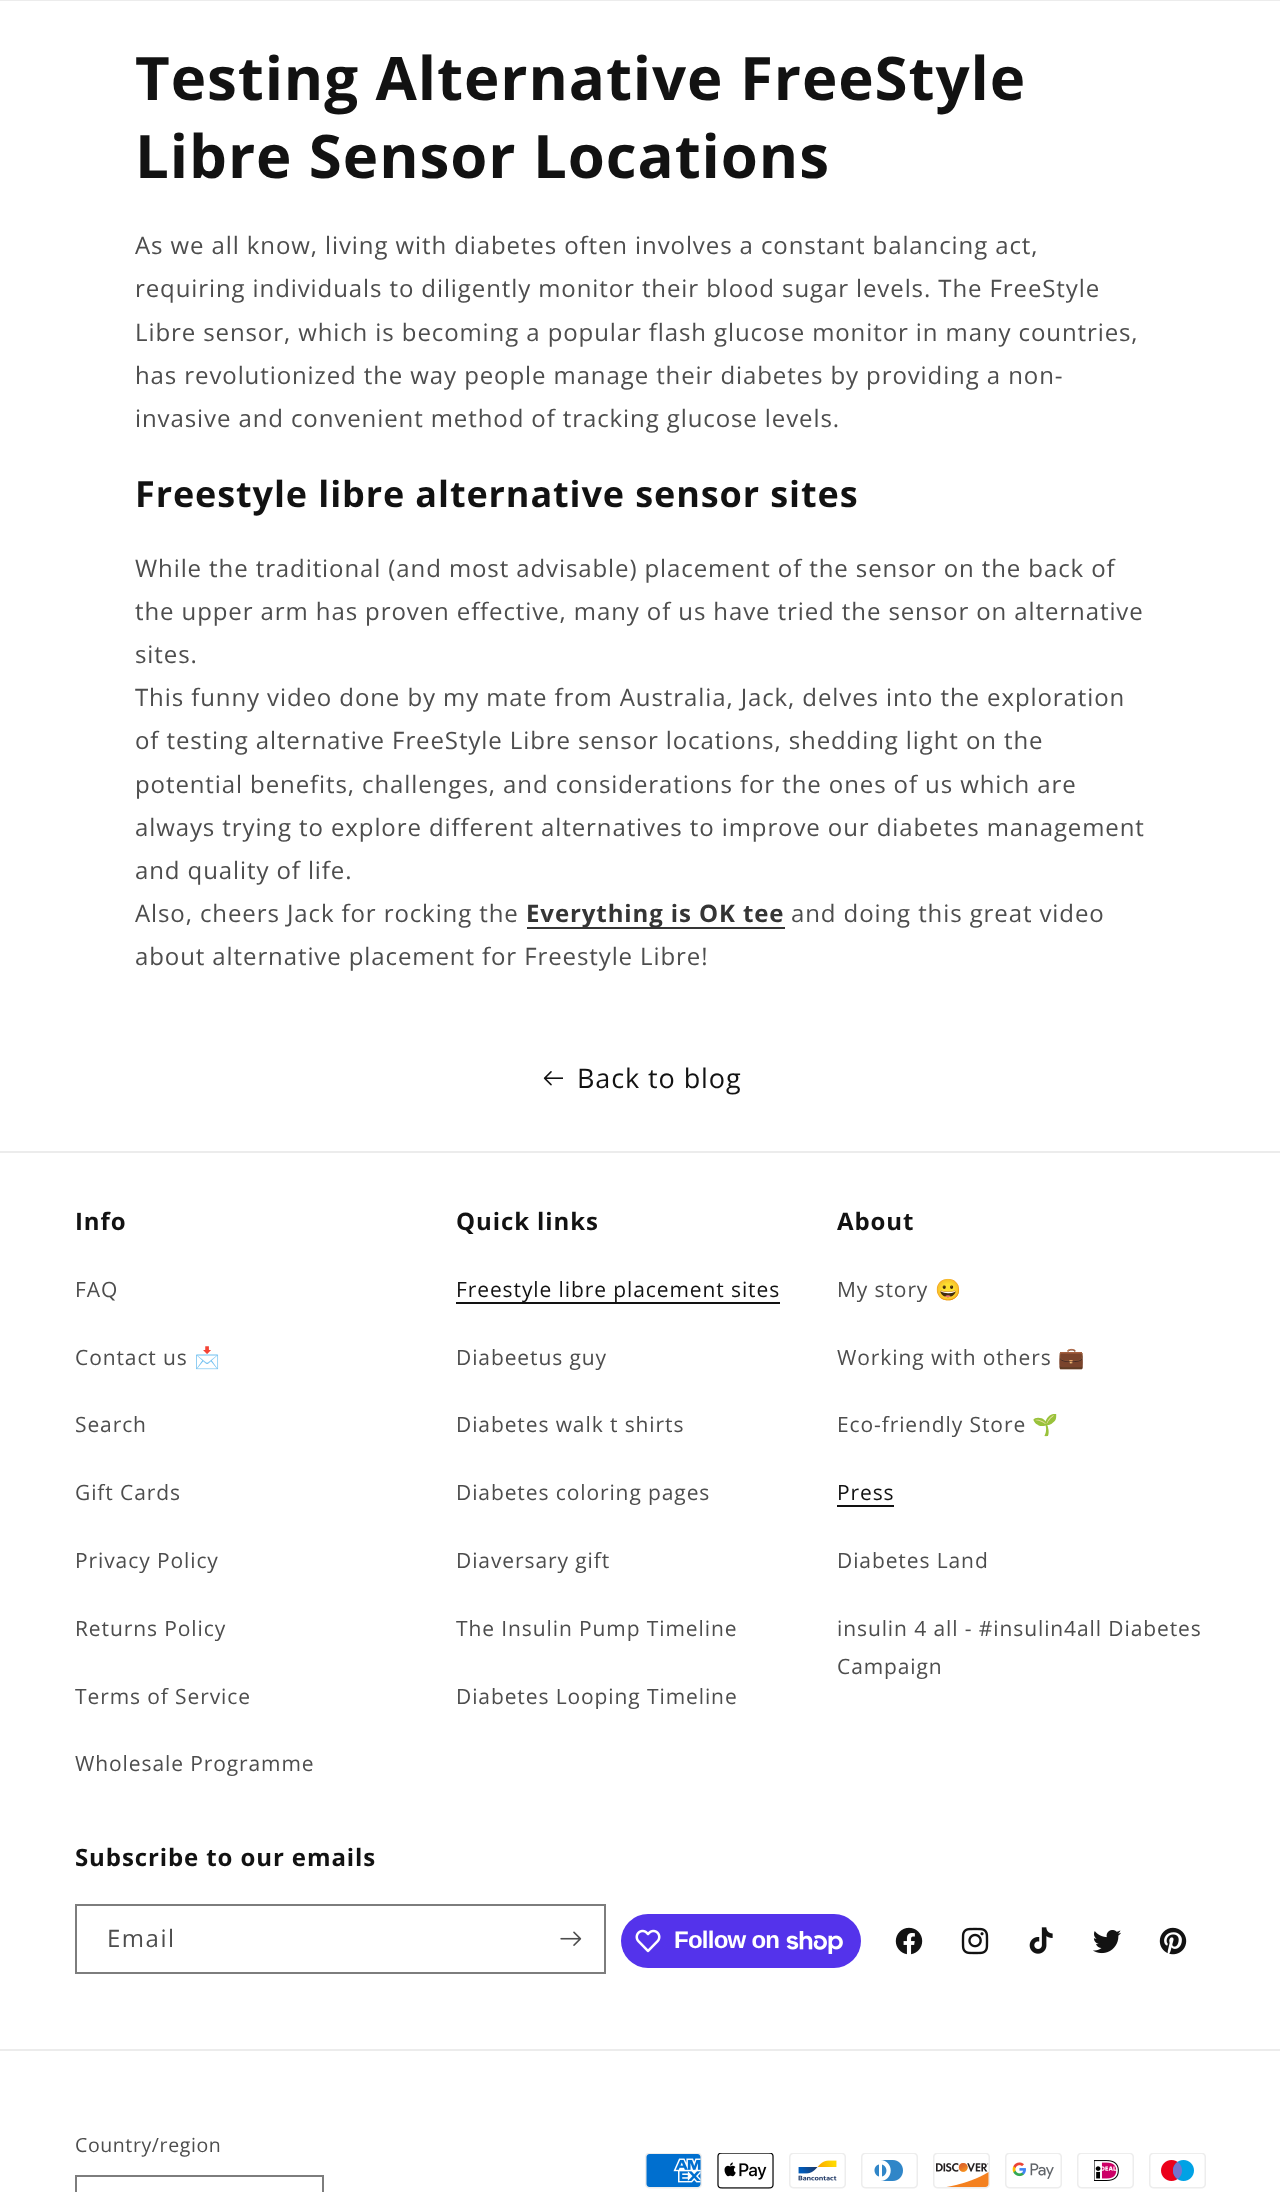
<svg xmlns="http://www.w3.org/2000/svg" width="1280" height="2192">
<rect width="100%" height="100%" fill="#fff"/>
<rect width="1280" height="1" fill="#ececec"/>
<text x="135" y="100" style="font-family:Open Sans;font-size:60px;font-weight:bold;letter-spacing:0.9px;fill:#121212">Testing Alternative FreeStyle</text>
<text x="135" y="178" style="font-family:Open Sans;font-size:60px;font-weight:bold;letter-spacing:0.9px;fill:#121212">Libre Sensor Locations</text>
<text x="135" y="254" style="font-family:Open Sans;font-size:24px;letter-spacing:0.9px;fill:#4d4d4d">As we all know, living with diabetes often involves a constant balancing act,</text>
<text x="135" y="297" style="font-family:Open Sans;font-size:24px;letter-spacing:0.9px;fill:#4d4d4d">requiring individuals to diligently monitor their blood sugar levels. The FreeStyle</text>
<text x="135" y="341" style="font-family:Open Sans;font-size:24px;letter-spacing:0.9px;fill:#4d4d4d">Libre sensor, which is becoming a popular flash glucose monitor in many countries,</text>
<text x="135" y="384" style="font-family:Open Sans;font-size:24px;letter-spacing:0.9px;fill:#4d4d4d">has revolutionized the way people manage their diabetes by providing a non-</text>
<text x="135" y="427" style="font-family:Open Sans;font-size:24px;letter-spacing:0.9px;fill:#4d4d4d">invasive and convenient method of tracking glucose levels.</text>
<text x="135" y="507" style="font-family:Open Sans;font-size:36px;font-weight:bold;letter-spacing:0.9px;fill:#121212">Freestyle libre alternative sensor sites</text>
<text x="135" y="577" style="font-family:Open Sans;font-size:24px;letter-spacing:0.9px;fill:#4d4d4d">While the traditional (and most advisable) placement of the sensor on the back of</text>
<text x="135" y="620" style="font-family:Open Sans;font-size:24px;letter-spacing:0.9px;fill:#4d4d4d">the upper arm has proven effective, many of us have tried the sensor on alternative</text>
<text x="135" y="663" style="font-family:Open Sans;font-size:24px;letter-spacing:0.9px;fill:#4d4d4d">sites.</text>
<text x="135" y="706" style="font-family:Open Sans;font-size:24px;letter-spacing:0.9px;fill:#4d4d4d">This funny video done by my mate from Australia, Jack, delves into the exploration</text>
<text x="135" y="749" style="font-family:Open Sans;font-size:24px;letter-spacing:0.9px;fill:#4d4d4d">of testing alternative FreeStyle Libre sensor locations, shedding light on the</text>
<text x="135" y="793" style="font-family:Open Sans;font-size:24px;letter-spacing:0.9px;fill:#4d4d4d">potential benefits, challenges, and considerations for the ones of us which are</text>
<text x="135" y="836" style="font-family:Open Sans;font-size:24px;letter-spacing:0.9px;fill:#4d4d4d">always trying to explore different alternatives to improve our diabetes management</text>
<text x="135" y="879" style="font-family:Open Sans;font-size:24px;letter-spacing:0.9px;fill:#4d4d4d">and quality of life.</text>
<text x="135" y="922" style="font-family:Open Sans;font-size:24px;letter-spacing:0.9px;fill:#4d4d4d">Also, cheers Jack for rocking the</text>
<rect x="527" y="927" width="258" height="2" fill="#363636"/>
<text x="526" y="922" style="font-family:Open Sans;font-size:24px;font-weight:bold;letter-spacing:0.9px;fill:#353535">Everything is OK tee</text>
<text x="791" y="922" style="font-family:Open Sans;font-size:24px;letter-spacing:0.9px;fill:#4d4d4d">and doing this great video</text>
<text x="135" y="965" style="font-family:Open Sans;font-size:24px;letter-spacing:0.9px;fill:#4d4d4d">about alternative placement for Freestyle Libre!</text>
<image x="543" y="1071" width="20" height="15" href="media/1.png"/>
<text x="577" y="1088" style="font-family:Open Sans;font-size:27px;letter-spacing:0.9px;fill:#121212">Back to blog</text>
<rect y="1151" width="1280" height="2" fill="#ececec"/>
<text x="75" y="1230" style="font-family:Open Sans;font-size:24px;font-weight:bold;letter-spacing:0.9px;fill:#121212">Info</text>
<text x="75" y="1297" style="font-family:Open Sans;font-size:21px;letter-spacing:0.9px;fill:#4d4d4d">FAQ</text>
<text x="75" y="1365" style="font-family:Open Sans;font-size:21px;letter-spacing:0.9px;fill:#4d4d4d">Contact us</text>
<text x="194" y="1365" style="font-family:Noto Color Emoji;font-size:21px;letter-spacing:0.9px;fill:#4d4d4d">📩</text>
<text x="75" y="1432" style="font-family:Open Sans;font-size:21px;letter-spacing:0.9px;fill:#4d4d4d">Search</text>
<text x="75" y="1500" style="font-family:Open Sans;font-size:21px;letter-spacing:0.9px;fill:#4d4d4d">Gift Cards</text>
<text x="75" y="1568" style="font-family:Open Sans;font-size:21px;letter-spacing:0.9px;fill:#4d4d4d">Privacy Policy</text>
<text x="75" y="1636" style="font-family:Open Sans;font-size:21px;letter-spacing:0.9px;fill:#4d4d4d">Returns Policy</text>
<text x="75" y="1704" style="font-family:Open Sans;font-size:21px;letter-spacing:0.9px;fill:#4d4d4d">Terms of Service</text>
<text x="75" y="1771" style="font-family:Open Sans;font-size:21px;letter-spacing:0.9px;fill:#4d4d4d">Wholesale Programme</text>
<text x="456" y="1230" style="font-family:Open Sans;font-size:24px;font-weight:bold;letter-spacing:0.9px;fill:#121212">Quick links</text>
<rect x="456" y="1302" width="324" height="2" fill="#121212"/>
<text x="456" y="1297" style="font-family:Open Sans;font-size:21px;letter-spacing:0.9px;fill:#121212">Freestyle libre placement sites</text>
<text x="456" y="1365" style="font-family:Open Sans;font-size:21px;letter-spacing:0.9px;fill:#4d4d4d">Diabeetus guy</text>
<text x="456" y="1432" style="font-family:Open Sans;font-size:21px;letter-spacing:0.9px;fill:#4d4d4d">Diabetes walk t shirts</text>
<text x="456" y="1500" style="font-family:Open Sans;font-size:21px;letter-spacing:0.9px;fill:#4d4d4d">Diabetes coloring pages</text>
<text x="456" y="1568" style="font-family:Open Sans;font-size:21px;letter-spacing:0.9px;fill:#4d4d4d">Diaversary gift</text>
<text x="456" y="1636" style="font-family:Open Sans;font-size:21px;letter-spacing:0.9px;fill:#4d4d4d">The Insulin Pump Timeline</text>
<text x="456" y="1704" style="font-family:Open Sans;font-size:21px;letter-spacing:0.9px;fill:#4d4d4d">Diabetes Looping Timeline</text>
<text x="837" y="1230" style="font-family:Open Sans;font-size:24px;font-weight:bold;letter-spacing:0.9px;fill:#121212">About</text>
<text x="837" y="1297" style="font-family:Open Sans;font-size:21px;letter-spacing:0.9px;fill:#4d4d4d">My story</text>
<text x="935" y="1297" style="font-family:Noto Color Emoji;font-size:21px;letter-spacing:0.9px;fill:#4d4d4d">😀</text>
<text x="837" y="1365" style="font-family:Open Sans;font-size:21px;letter-spacing:0.9px;fill:#4d4d4d">Working with others</text>
<text x="1058" y="1365" style="font-family:Noto Color Emoji;font-size:21px;letter-spacing:0.9px;fill:#4d4d4d">💼</text>
<text x="837" y="1432" style="font-family:Open Sans;font-size:21px;letter-spacing:0.9px;fill:#4d4d4d">Eco-friendly Store</text>
<text x="1032" y="1432" style="font-family:Noto Color Emoji;font-size:21px;letter-spacing:0.9px;fill:#4d4d4d">🌱</text>
<text x="837" y="1500" style="font-family:Open Sans;font-size:21px;letter-spacing:0.9px;fill:#121212">Press</text>
<rect x="837" y="1505" width="57" height="2" fill="#121212"/>
<text x="837" y="1568" style="font-family:Open Sans;font-size:21px;letter-spacing:0.9px;fill:#4d4d4d">Diabetes Land</text>
<text x="837" y="1636" style="font-family:Open Sans;font-size:21px;letter-spacing:0.9px;fill:#4d4d4d">insulin 4 all - #insulin4all Diabetes</text>
<text x="837" y="1674" style="font-family:Open Sans;font-size:21px;letter-spacing:0.9px;fill:#4d4d4d">Campaign</text>
<text x="75" y="1866" style="font-family:Open Sans;font-size:24px;font-weight:bold;letter-spacing:0.9px;fill:#121212">Subscribe to our emails</text>
<rect x="76" y="1905" width="529" height="68" fill="none" stroke="#7d7d7d" stroke-width="2"/>
<text x="107" y="1947" style="font-family:Open Sans;font-size:24px;letter-spacing:1.5px;fill:#4d4d4d">Email</text>
<image x="560" y="1931" width="22" height="15" href="media/2.png"/>
<rect x="621" y="1914" width="240" height="54" rx="27" fill="#5433eb"/>
<image x="635" y="1929" width="26" height="24" href="media/3.png"/>
<text x="674" y="1948" style="font-family:Liberation Sans;font-size:24px;font-weight:bold;letter-spacing:-0.75px;fill:#fff">Follow on</text>
<image x="786" y="1931" width="57" height="23" href="media/4.png"/>
<image x="895" y="1927" width="28" height="28" href="media/5.png"/>
<image x="961" y="1927" width="28" height="28" href="media/6.png"/>
<image x="1029" y="1927" width="24" height="27" href="media/7.png"/>
<image x="1093" y="1930" width="28" height="24" href="media/8.png"/>
<image x="1159" y="1927" width="28" height="28" href="media/9.png"/>
<rect y="2049" width="1280" height="2" fill="#ececec"/>
<text x="75" y="2152" style="font-family:Open Sans;font-size:19.5px;letter-spacing:0.6px;fill:#4d4d4d">Country/region</text>
<rect x="76" y="2176" width="247" height="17" fill="none" stroke="#7d7d7d" stroke-width="2"/>
<image x="645" y="2153" width="57" height="36" href="media/10.png"/>
<image x="717" y="2153" width="57" height="36" href="media/11.png"/>
<image x="789" y="2153" width="57" height="36" href="media/12.png"/>
<image x="861" y="2153" width="57" height="36" href="media/13.png"/>
<image x="933" y="2153" width="57" height="36" href="media/14.png"/>
<image x="1005" y="2153" width="57" height="36" href="media/15.png"/>
<image x="1077" y="2153" width="57" height="36" href="media/16.png"/>
<image x="1149" y="2153" width="57" height="36" href="media/17.png"/>
</svg>
